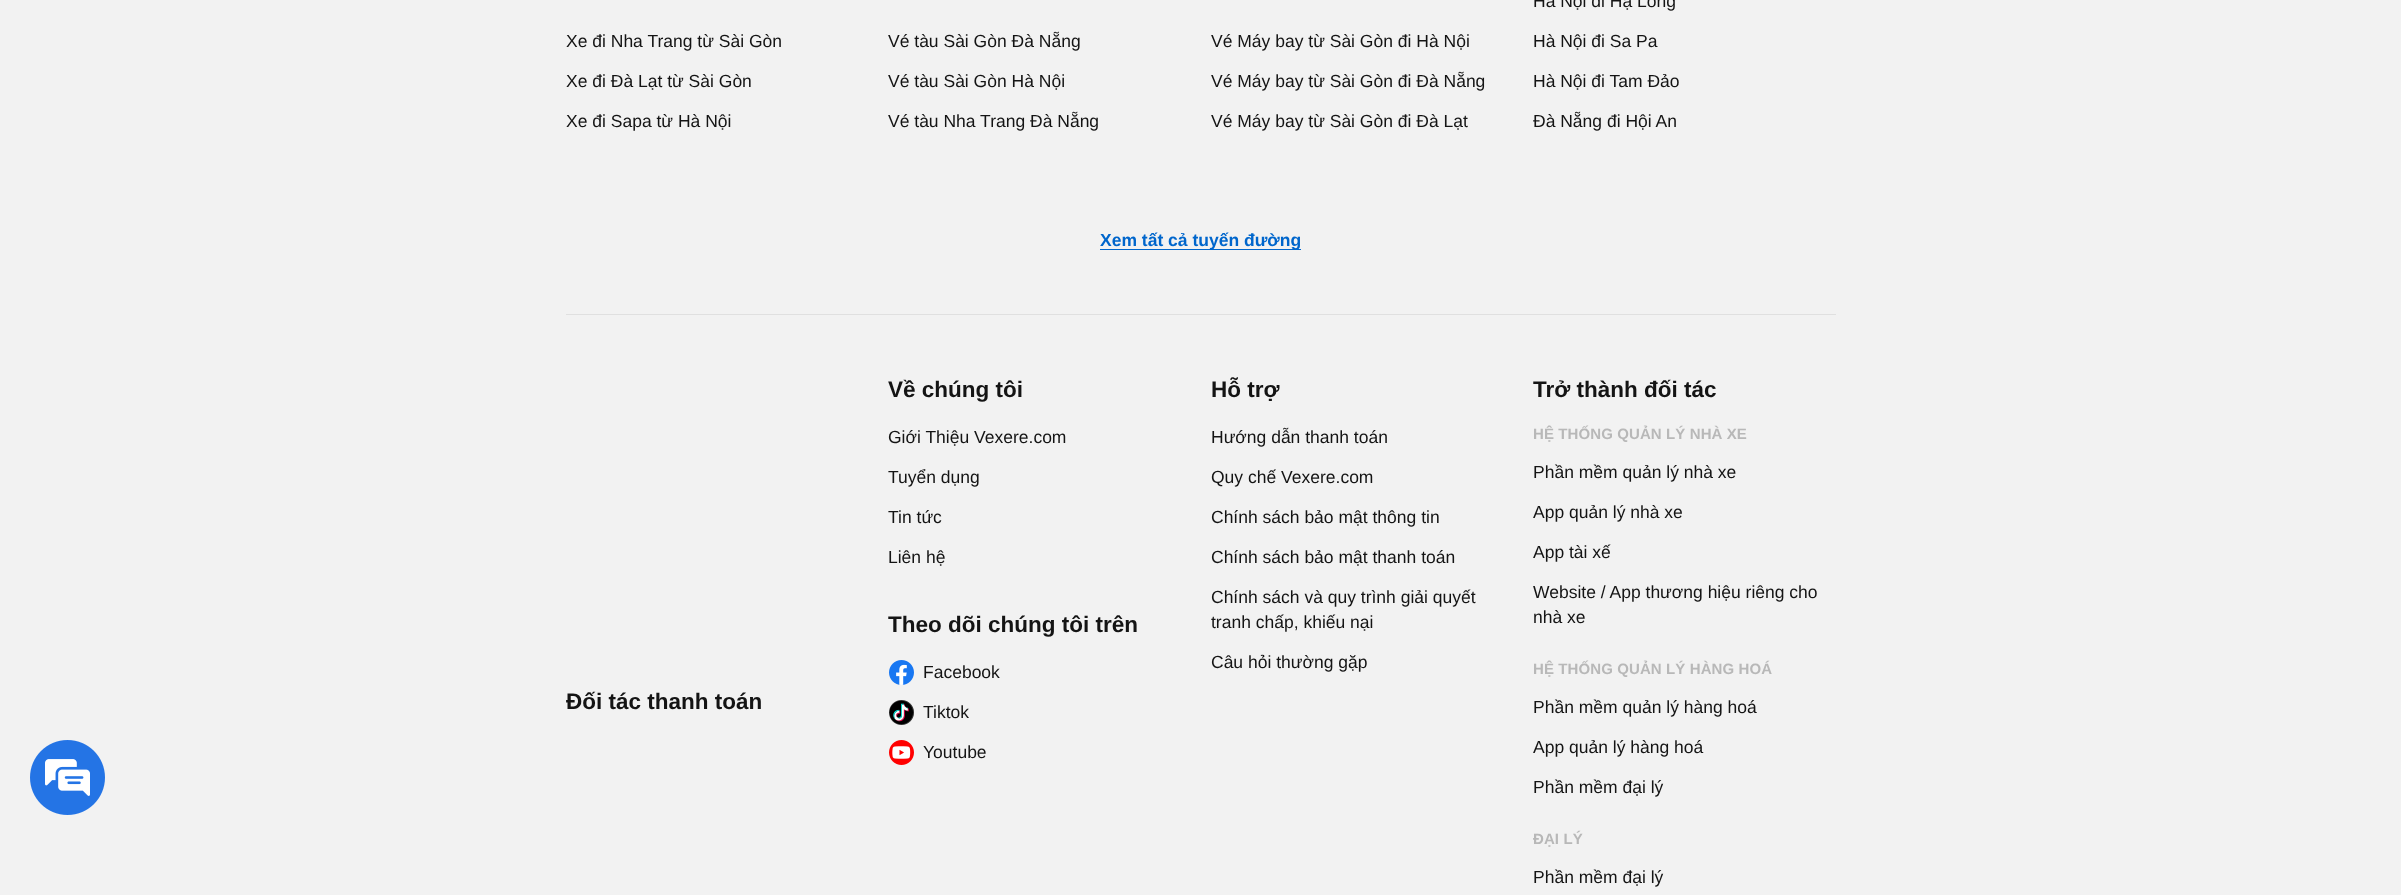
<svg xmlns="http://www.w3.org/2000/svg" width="2401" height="895">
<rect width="100%" height="100%" fill="#f2f2f2"/>
<image x="30" y="740" width="75" height="75" href="media/1.png"/>
<text x="566" y="47" style="font-family:Liberation Sans;font-size:17.5px;fill:#141414">Xe đi Nha Trang từ Sài Gòn</text>
<text x="566" y="87" style="font-family:Liberation Sans;font-size:17.5px;fill:#141414">Xe đi Đà Lạt từ Sài Gòn</text>
<text x="566" y="127" style="font-family:Liberation Sans;font-size:17.5px;fill:#141414">Xe đi Sapa từ Hà Nội</text>
<text x="888" y="47" style="font-family:Liberation Sans;font-size:17.5px;fill:#141414">Vé tàu Sài Gòn Đà Nẵng</text>
<text x="888" y="87" style="font-family:Liberation Sans;font-size:17.5px;fill:#141414">Vé tàu Sài Gòn Hà Nội</text>
<text x="888" y="127" style="font-family:Liberation Sans;font-size:17.5px;fill:#141414">Vé tàu Nha Trang Đà Nẵng</text>
<text x="1211" y="47" style="font-family:Liberation Sans;font-size:17.5px;fill:#141414">Vé Máy bay từ Sài Gòn đi Hà Nội</text>
<text x="1211" y="87" style="font-family:Liberation Sans;font-size:17.5px;fill:#141414">Vé Máy bay từ Sài Gòn đi Đà Nẵng</text>
<text x="1211" y="127" style="font-family:Liberation Sans;font-size:17.5px;fill:#141414">Vé Máy bay từ Sài Gòn đi Đà Lạt</text>
<text x="1533" y="7" style="font-family:Liberation Sans;font-size:17.5px;fill:#141414">Hà Nội đi Hạ Long</text>
<text x="1533" y="47" style="font-family:Liberation Sans;font-size:17.5px;fill:#141414">Hà Nội đi Sa Pa</text>
<text x="1533" y="87" style="font-family:Liberation Sans;font-size:17.5px;fill:#141414">Hà Nội đi Tam Đảo</text>
<text x="1533" y="127" style="font-family:Liberation Sans;font-size:17.5px;fill:#141414">Đà Nẵng đi Hội An</text>
<rect x="1100" y="249" width="201" height="1" fill="#06c"/>
<text x="1100" y="246" style="font-family:Liberation Sans;font-size:17.5px;font-weight:bold;fill:#06c">Xem tất cả tuyến đường</text>
<rect x="566" y="314" width="1270" height="1" fill="#e0e0e0"/>
<text x="566" y="709" style="font-family:Liberation Sans;font-size:22.5px;font-weight:bold;fill:#141414">Đối tác thanh toán</text>
<text x="888" y="397" style="font-family:Liberation Sans;font-size:22.5px;font-weight:bold;fill:#141414">Về chúng tôi</text>
<text x="888" y="443" style="font-family:Liberation Sans;font-size:17.5px;fill:#141414">Giới Thiệu Vexere.com</text>
<text x="888" y="483" style="font-family:Liberation Sans;font-size:17.5px;fill:#141414">Tuyển dụng</text>
<text x="888" y="523" style="font-family:Liberation Sans;font-size:17.5px;fill:#141414">Tin tức</text>
<text x="888" y="563" style="font-family:Liberation Sans;font-size:17.5px;fill:#141414">Liên hệ</text>
<text x="888" y="632" style="font-family:Liberation Sans;font-size:22.5px;font-weight:bold;fill:#141414">Theo dõi chúng tôi trên</text>
<image x="889" y="660" width="25" height="25" href="media/2.png"/>
<text x="923" y="678" style="font-family:Liberation Sans;font-size:17.5px;fill:#141414">Facebook</text>
<image x="889" y="700" width="25" height="25" href="media/3.png"/>
<text x="923" y="718" style="font-family:Liberation Sans;font-size:17.5px;fill:#141414">Tiktok</text>
<image x="889" y="740" width="25" height="25" href="media/4.png"/>
<text x="923" y="758" style="font-family:Liberation Sans;font-size:17.5px;fill:#141414">Youtube</text>
<text x="1211" y="397" style="font-family:Liberation Sans;font-size:22.5px;font-weight:bold;fill:#141414">Hỗ trợ</text>
<text x="1211" y="443" style="font-family:Liberation Sans;font-size:17.5px;fill:#141414">Hướng dẫn thanh toán</text>
<text x="1211" y="483" style="font-family:Liberation Sans;font-size:17.5px;fill:#141414">Quy chế Vexere.com</text>
<text x="1211" y="523" style="font-family:Liberation Sans;font-size:17.5px;fill:#141414">Chính sách bảo mật thông tin</text>
<text x="1211" y="563" style="font-family:Liberation Sans;font-size:17.5px;fill:#141414">Chính sách bảo mật thanh toán</text>
<text x="1211" y="603" style="font-family:Liberation Sans;font-size:17.5px;fill:#141414">Chính sách và quy trình giải quyết</text>
<text x="1211" y="628" style="font-family:Liberation Sans;font-size:17.5px;fill:#141414">tranh chấp, khiếu nại</text>
<text x="1211" y="668" style="font-family:Liberation Sans;font-size:17.5px;fill:#141414">Câu hỏi thường gặp</text>
<text x="1533" y="397" style="font-family:Liberation Sans;font-size:22.5px;font-weight:bold;fill:#141414">Trở thành đối tác</text>
<text x="1533" y="439" style="font-family:Liberation Sans;font-size:15px;font-weight:bold;letter-spacing:0.1px;fill:#b8b8b8">HỆ THỐNG QUẢN LÝ NHÀ XE</text>
<text x="1533" y="478" style="font-family:Liberation Sans;font-size:17.5px;fill:#141414">Phần mềm quản lý nhà xe</text>
<text x="1533" y="518" style="font-family:Liberation Sans;font-size:17.5px;fill:#141414">App quản lý nhà xe</text>
<text x="1533" y="558" style="font-family:Liberation Sans;font-size:17.5px;fill:#141414">App tài xế</text>
<text x="1533" y="598" style="font-family:Liberation Sans;font-size:17.5px;fill:#141414">Website / App thương hiệu riêng cho</text>
<text x="1533" y="623" style="font-family:Liberation Sans;font-size:17.5px;fill:#141414">nhà xe</text>
<text x="1533" y="674" style="font-family:Liberation Sans;font-size:15px;font-weight:bold;letter-spacing:0.1px;fill:#b8b8b8">HỆ THỐNG QUẢN LÝ HÀNG HOÁ</text>
<text x="1533" y="713" style="font-family:Liberation Sans;font-size:17.5px;fill:#141414">Phần mềm quản lý hàng hoá</text>
<text x="1533" y="753" style="font-family:Liberation Sans;font-size:17.5px;fill:#141414">App quản lý hàng hoá</text>
<text x="1533" y="793" style="font-family:Liberation Sans;font-size:17.5px;fill:#141414">Phần mềm đại lý</text>
<text x="1533" y="844" style="font-family:Liberation Sans;font-size:15px;font-weight:bold;letter-spacing:0.1px;fill:#b8b8b8">ĐẠI LÝ</text>
<text x="1533" y="883" style="font-family:Liberation Sans;font-size:17.5px;fill:#141414">Phần mềm đại lý</text>
</svg>
